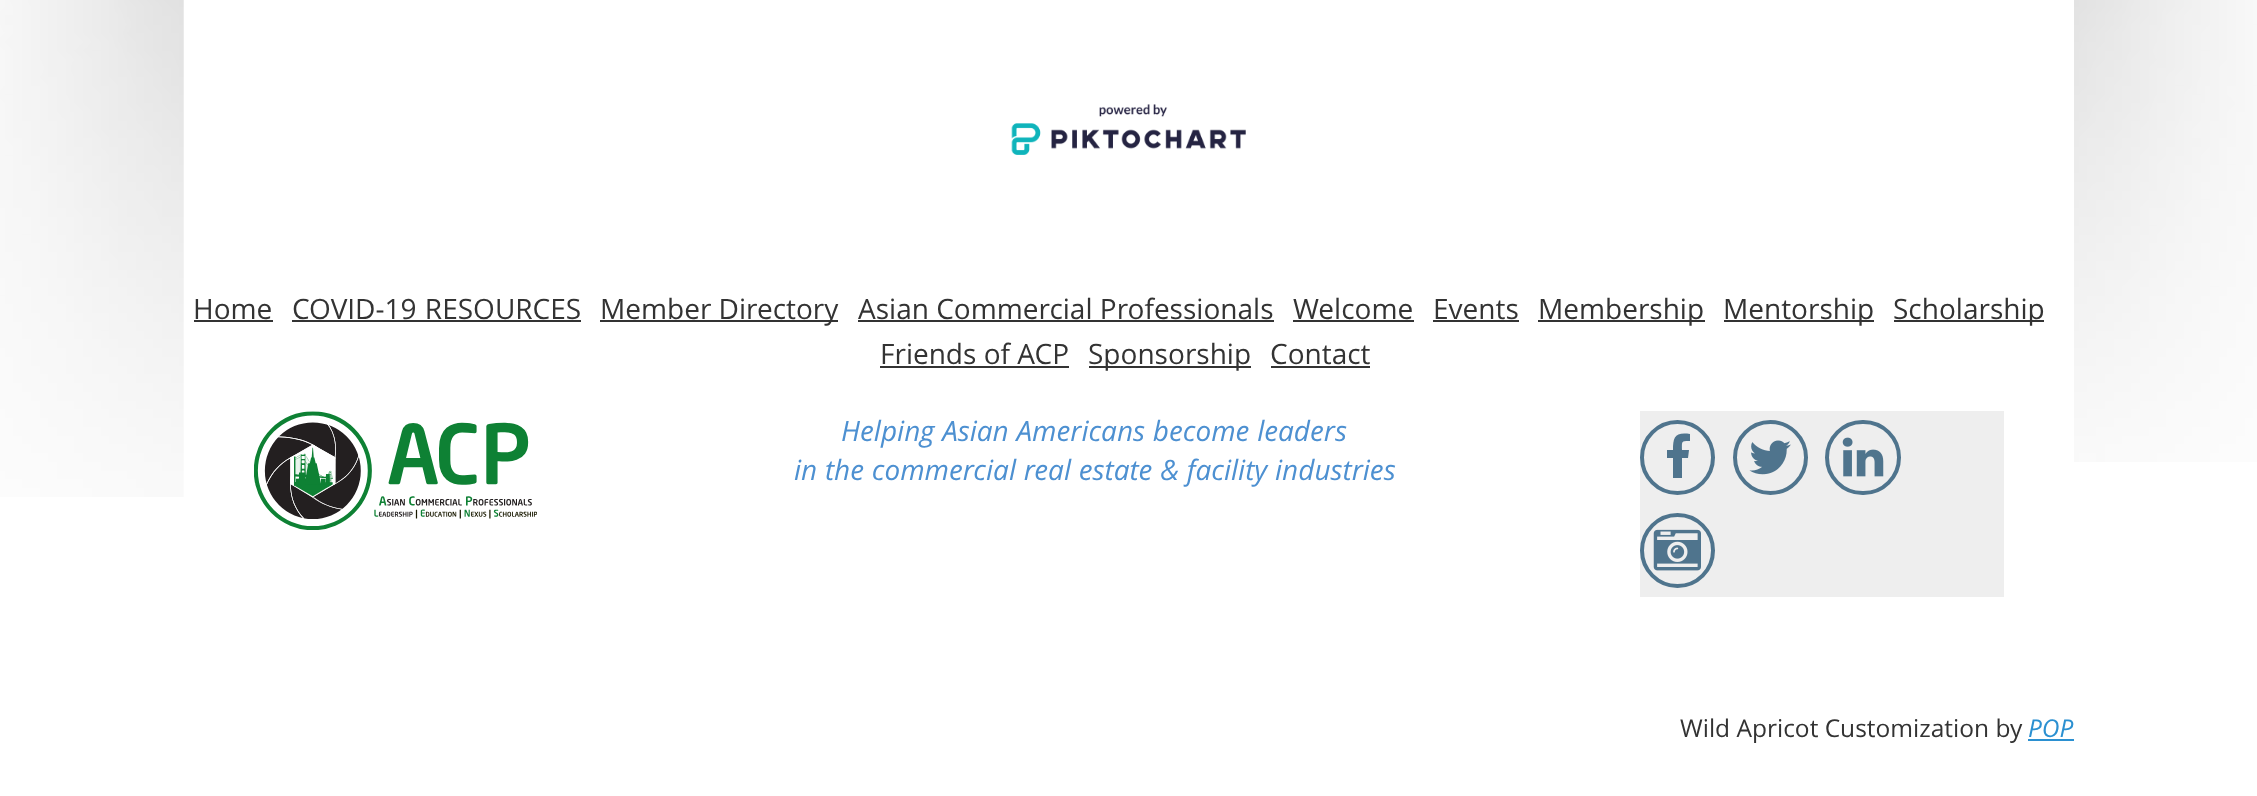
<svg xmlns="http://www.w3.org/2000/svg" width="2257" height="796">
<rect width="100%" height="100%" fill="#fff"/>
<image x="0" y="0" width="184" height="497" href="media/1.png"/>
<image x="1011" y="104" width="235" height="51" href="media/2.png"/>
<text x="193" y="319" style="font-family:Open Sans;font-size:28px;fill:#333">Home</text>
<rect x="194" y="320" width="79" height="2" fill="#333"/>
<text x="292" y="319" word-spacing="1" style="font-family:Open Sans;font-size:28px;fill:#333">COVID-19 RESOURCES</text>
<rect x="292" y="320" width="289" height="2" fill="#333"/>
<rect x="600" y="320" width="238" height="2" fill="#333"/>
<text x="600" y="319" style="font-family:Open Sans;font-size:28px;fill:#333">Member Directory</text>
<text x="858" y="319" style="font-family:Open Sans;font-size:28px;fill:#333">Asian Commercial Professionals</text>
<rect x="858" y="320" width="416" height="2" fill="#333"/>
<text x="1293" y="319" style="font-family:Open Sans;font-size:28px;fill:#333">Welcome</text>
<rect x="1293" y="320" width="121" height="2" fill="#333"/>
<text x="1433" y="319" style="font-family:Open Sans;font-size:28px;fill:#333">Events</text>
<rect x="1433" y="320" width="86" height="2" fill="#333"/>
<rect x="1538" y="320" width="167" height="2" fill="#333"/>
<text x="1538" y="319" style="font-family:Open Sans;font-size:28px;fill:#333">Membership</text>
<rect x="1724" y="320" width="150" height="2" fill="#333"/>
<text x="1723" y="319" style="font-family:Open Sans;font-size:28px;fill:#333">Mentorship</text>
<rect x="1894" y="320" width="150" height="2" fill="#333"/>
<text x="1893" y="319" style="font-family:Open Sans;font-size:28px;fill:#333">Scholarship</text>
<text x="880" y="364" style="font-family:Open Sans;font-size:28px;fill:#333">Friends of ACP</text>
<rect x="880" y="366" width="189" height="2" fill="#333"/>
<rect x="1089" y="366" width="162" height="2" fill="#333"/>
<text x="1088" y="364" style="font-family:Open Sans;font-size:28px;fill:#333">Sponsorship</text>
<text x="1270" y="364" style="font-family:Open Sans;font-size:28px;fill:#333">Contact</text>
<rect x="1271" y="366" width="99" height="2" fill="#333"/>
<image x="254" y="411" width="283" height="119" href="media/3.png"/>
<text x="841" y="441" word-spacing="0.5" style="font-family:Open Sans;font-size:28px;font-style:italic;fill:#4d90d1">Helping Asian Americans become leaders</text>
<text x="794" y="480" word-spacing="0.5" style="font-family:Open Sans;font-size:28px;font-style:italic;fill:#4d90d1">in the commercial real estate &amp; facility industries</text>
<rect x="1640" y="411" width="364" height="186" fill="#eee"/>
<circle cx="1677.5" cy="457.5" r="35.5" fill="none" stroke="#4f748d" stroke-width="4"/>
<path d="M1690 434v7c-9 0-8 0-8 9h7l-1 8h-6v20h-9v-20h-6v-8h6c0-13 2-18 17-16z" fill="#4f748d"/>
<circle cx="1770.5" cy="457.5" r="35.5" fill="none" stroke="#4f748d" stroke-width="4"/>
<image x="1749" y="440" width="42" height="35" href="media/4.png"/>
<rect x="1827" y="422" width="72" height="71" rx="35.5" fill="none" stroke="#4f748d" stroke-width="4"/>
<image x="1842" y="437" width="42" height="40" href="media/5.png"/>
<circle cx="1677.5" cy="550.5" r="35.5" fill="none" stroke="#4f748d" stroke-width="4"/>
<image x="1653" y="529" width="48" height="42" href="media/6.png"/>
<image x="2074" y="0" width="183" height="462" href="media/7.png"/>
<text x="1680" y="737" style="font-family:Open Sans;font-size:24.5px;fill:#333">Wild Apricot Customization by</text>
<text x="2028" y="737" style="font-family:Open Sans;font-size:24.5px;font-style:italic;fill:#2b90d1">POP</text>
<rect x="2028" y="739" width="46" height="2" fill="#2b90d1"/>
</svg>
